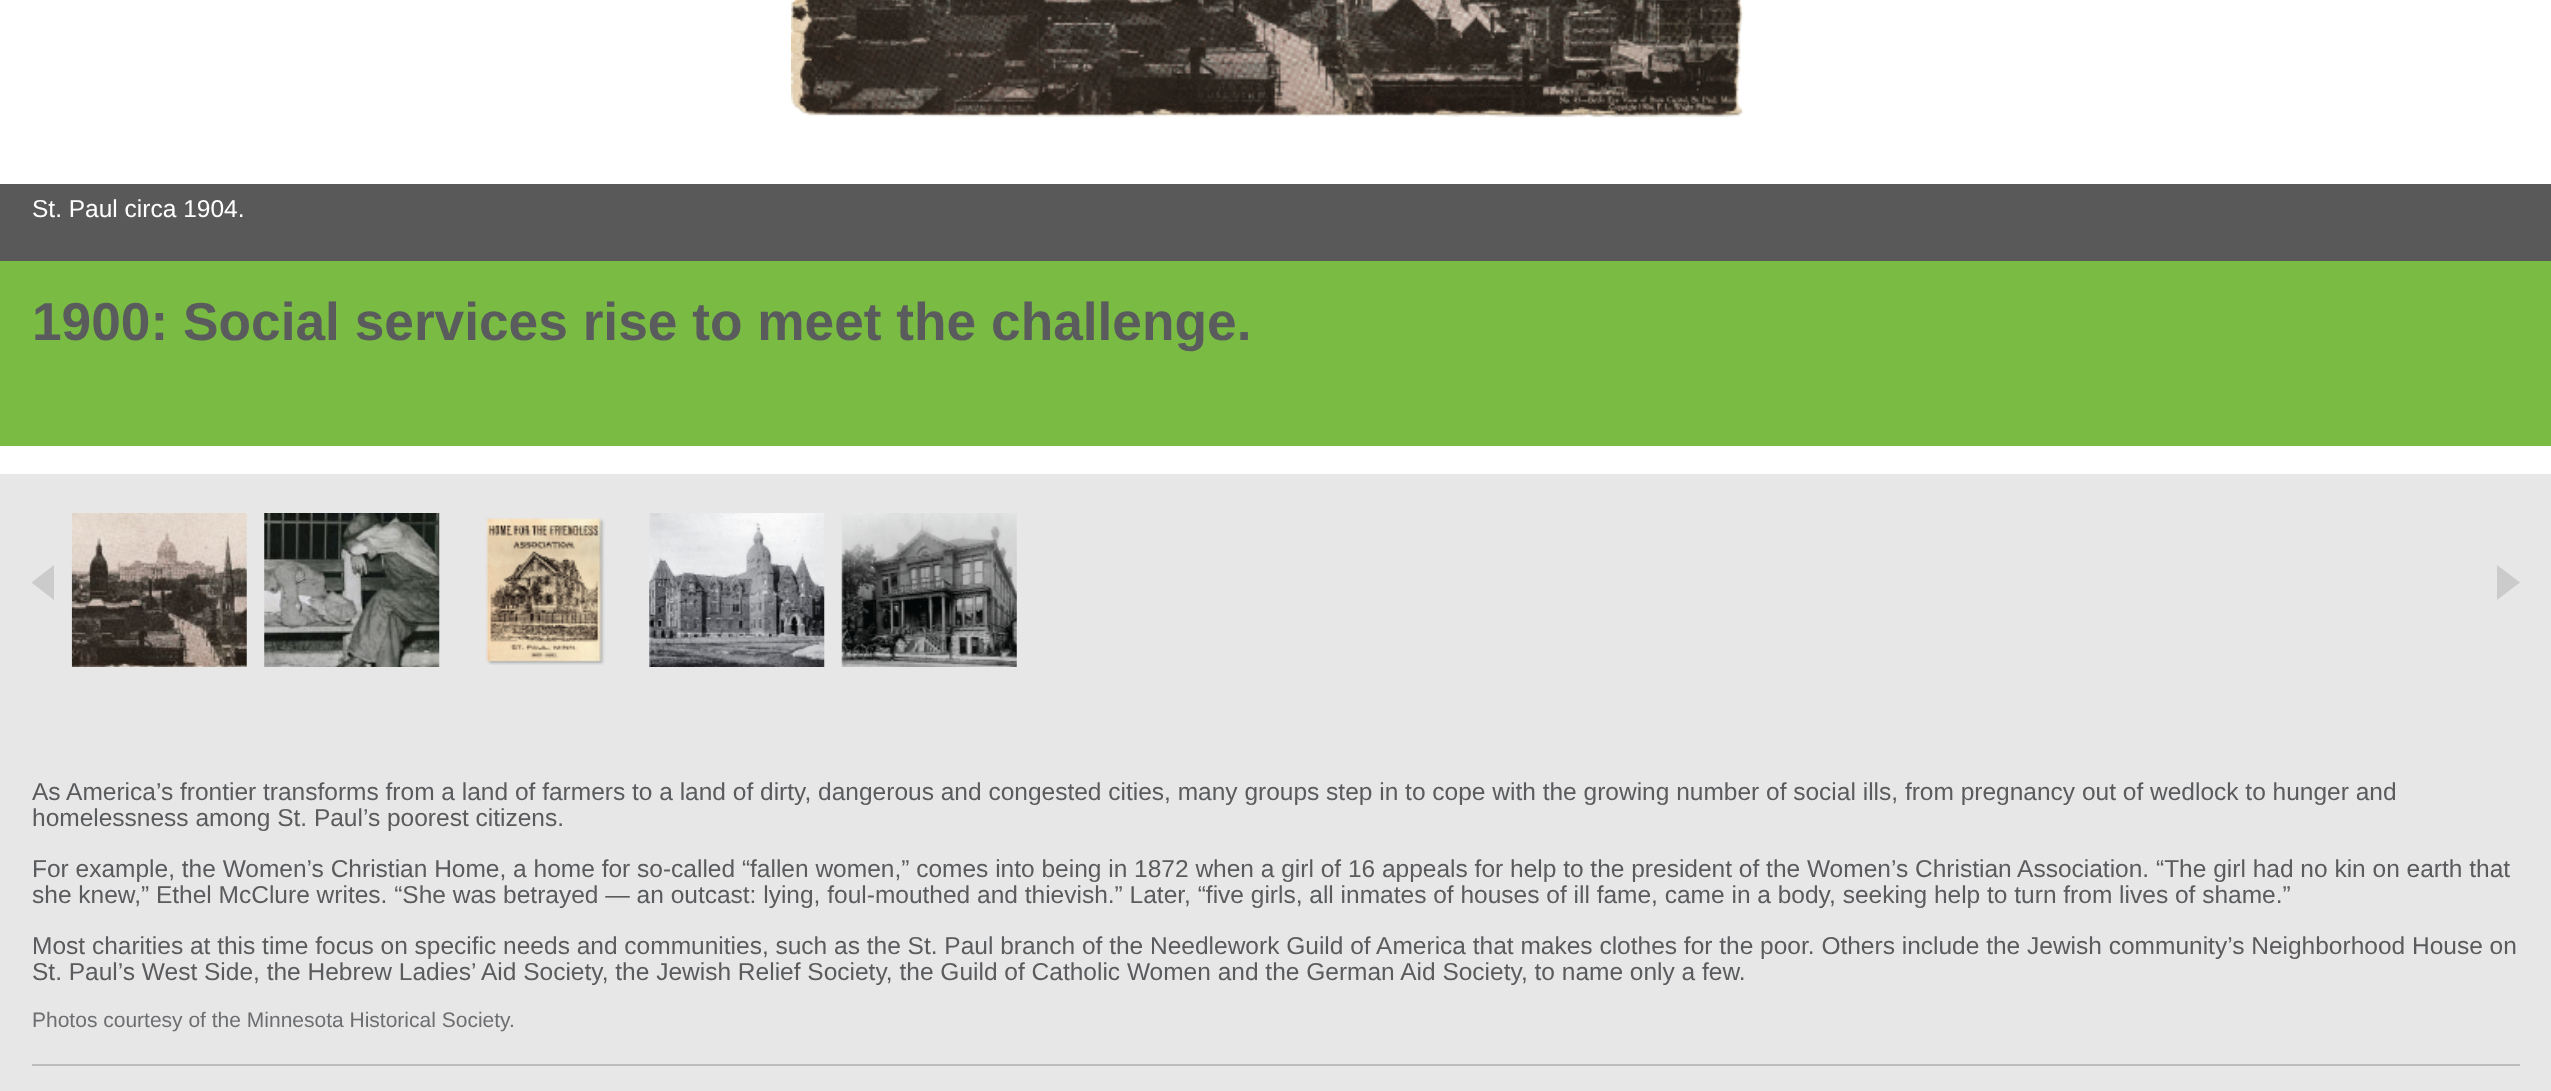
<svg xmlns="http://www.w3.org/2000/svg" width="2551" height="1091">
<rect width="100%" height="100%" fill="#fff"/>
<image x="791" y="0" width="953" height="118" href="media/1.png"/>
<rect y="184" width="2551" height="77" fill="#595959"/>
<text x="32" y="217" style="font-family:Liberation Sans;font-size:24.5px;fill:#fff">St. Paul circa 1904.</text>
<rect y="261" width="2551" height="185" fill="#7abb43"/>
<text x="32" y="340" style="font-family:Liberation Sans;font-size:53.25px;font-weight:bold;fill:#5a5b5d">1900: Social services rise to meet the challenge.</text>
<rect y="474" width="2551" height="617" fill="#e7e7e8"/>
<path d="M54 565l-22.5 17.5l22.5 17.5z" fill="#cbcbcc"/>
<image x="71" y="513" width="176" height="154" href="media/2.png"/>
<image x="264" y="513" width="176" height="154" href="media/3.png"/>
<image x="485" y="517" width="120" height="148" href="media/4.png"/>
<image x="649" y="513" width="176" height="154" href="media/5.png"/>
<image x="841" y="513" width="176" height="154" href="media/6.png"/>
<path d="M2497 565l23 17.5l-23 17.5z" fill="#cbcbcc"/>
<text x="32" y="800" style="font-family:Liberation Sans;font-size:24.5px;fill:#5a5b5d">As America’s frontier transforms from a land of farmers to a land of dirty, dangerous and congested cities, many groups step in to cope with the growing number of social ills, from pregnancy out of wedlock to hunger and</text>
<text x="32" y="826" style="font-family:Liberation Sans;font-size:24.5px;fill:#5a5b5d">homelessness among St. Paul’s poorest citizens.</text>
<text x="32" y="877" style="font-family:Liberation Sans;font-size:24.5px;fill:#5a5b5d">For example, the Women’s Christian Home, a home for so-called “fallen women,” comes into being in 1872 when a girl of 16 appeals for help to the president of the Women’s Christian Association. “The girl had no kin on earth that</text>
<text x="32" y="903" style="font-family:Liberation Sans;font-size:24.5px;fill:#5a5b5d">she knew,” Ethel McClure writes. “She was betrayed — an outcast: lying, foul-mouthed and thievish.” Later, “five girls, all inmates of houses of ill fame, came in a body, seeking help to turn from lives of shame.”</text>
<text x="32" y="954" style="font-family:Liberation Sans;font-size:24.5px;fill:#5a5b5d">Most charities at this time focus on specific needs and communities, such as the St. Paul branch of the Needlework Guild of America that makes clothes for the poor. Others include the Jewish community’s Neighborhood House on</text>
<text x="32" y="980" style="font-family:Liberation Sans;font-size:24.5px;fill:#5a5b5d">St. Paul’s West Side, the Hebrew Ladies’ Aid Society, the Jewish Relief Society, the Guild of Catholic Women and the German Aid Society, to name only a few.</text>
<text x="32" y="1027" style="font-family:Liberation Sans;font-size:21px;fill:#6d6e70">Photos courtesy of the Minnesota Historical Society.</text>
<rect x="32" y="1064" width="2488" height="2" fill="#bbbdbf"/>
</svg>
